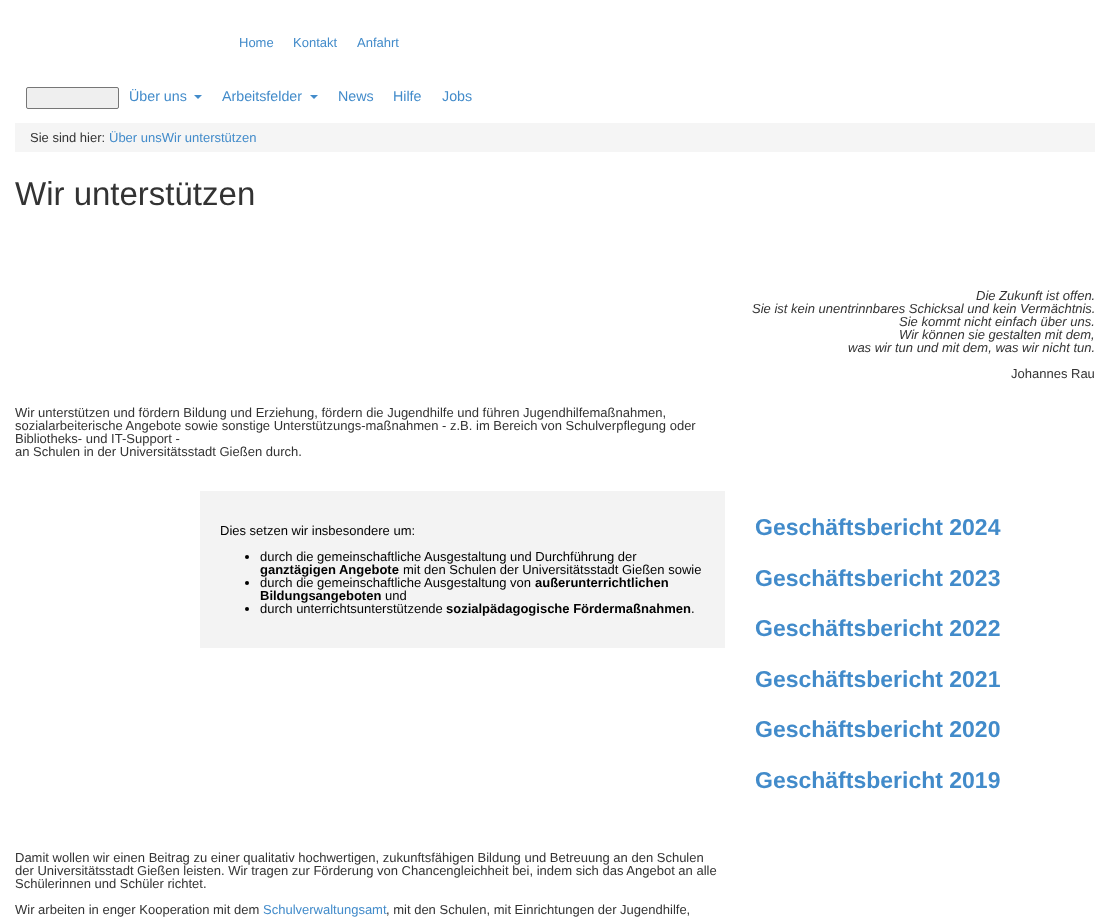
<svg xmlns="http://www.w3.org/2000/svg" width="1110" height="922">
<rect width="100%" height="100%" fill="#fff"/>
<text x="239" y="47" style="font-family:Liberation Sans;font-size:13px;fill:#428bca">Home</text>
<text x="293" y="47" style="font-family:Liberation Sans;font-size:13px;fill:#428bca">Kontakt</text>
<text x="357" y="47" style="font-family:Liberation Sans;font-size:13px;fill:#428bca">Anfahrt</text>
<rect x="26.5" y="87.5" width="92" height="21" rx="1.5" fill="#efefef" stroke="#767676"/>
<text x="129" y="101" style="font-family:Liberation Sans;font-size:14.25px;fill:#428bca">Über uns</text>
<path d="M194 95h8l-4 4z" fill="#428bca"/>
<text x="222" y="101" style="font-family:Liberation Sans;font-size:14.25px;fill:#428bca">Arbeitsfelder</text>
<path d="M310 95h8l-4 4z" fill="#428bca"/>
<text x="338" y="101" style="font-family:Liberation Sans;font-size:14.25px;fill:#428bca">News</text>
<text x="393" y="101" style="font-family:Liberation Sans;font-size:14.25px;fill:#428bca">Hilfe</text>
<text x="442" y="101" style="font-family:Liberation Sans;font-size:14.25px;fill:#428bca">Jobs</text>
<rect x="15" y="123" width="1080" height="29" fill="#f5f5f5"/>
<text x="30" y="142" style="font-family:Liberation Sans;font-size:13px;fill:#333">Sie sind hier:</text>
<text x="109" y="142" style="font-family:Liberation Sans;font-size:13px;fill:#428bca">Über unsWir unterstützen</text>
<text x="15" y="205" style="font-family:Liberation Sans;font-size:33px;fill:#333">Wir unterstützen</text>
<text x="976" y="300" style="font-family:Liberation Sans;font-size:13px;font-style:italic;fill:#333">Die Zukunft ist offen.</text>
<text x="752" y="313" style="font-family:Liberation Sans;font-size:13px;font-style:italic;fill:#333">Sie ist kein unentrinnbares Schicksal und kein Vermächtnis.</text>
<text x="899" y="326" style="font-family:Liberation Sans;font-size:13px;font-style:italic;fill:#333">Sie kommt nicht einfach über uns.</text>
<text x="899" y="339" style="font-family:Liberation Sans;font-size:13px;font-style:italic;fill:#333">Wir können sie gestalten mit dem,</text>
<text x="848" y="352" style="font-family:Liberation Sans;font-size:13px;font-style:italic;fill:#333">was wir tun und mit dem, was wir nicht tun.</text>
<text x="1011" y="378" style="font-family:Liberation Sans;font-size:13px;fill:#333">Johannes Rau</text>
<text x="15" y="417" style="font-family:Liberation Sans;font-size:13px;fill:#333">Wir unterstützen und fördern Bildung und Erziehung, fördern die Jugendhilfe und führen Jugendhilfemaßnahmen,</text>
<text x="15" y="430" style="font-family:Liberation Sans;font-size:13px;fill:#333">sozialarbeiterische Angebote sowie sonstige Unterstützungs-maßnahmen - z.B. im Bereich von Schulverpflegung oder</text>
<text x="15" y="443" style="font-family:Liberation Sans;font-size:13px;fill:#333">Bibliotheks- und IT-Support -</text>
<text x="15" y="456" style="font-family:Liberation Sans;font-size:13px;fill:#333">an Schulen in der Universitätsstadt Gießen durch.</text>
<rect x="200" y="491" width="525" height="157" fill="#f3f3f3"/>
<text x="220" y="535" style="font-family:Liberation Sans;font-size:13px;fill:#000">Dies setzen wir insbesondere um:</text>
<circle cx="247" cy="557" r="2" fill="#000"/>
<text x="260" y="561" style="font-family:Liberation Sans;font-size:13px;fill:#000">durch die gemeinschaftliche Ausgestaltung und Durchführung der</text>
<text x="260" y="574" style="font-family:Liberation Sans;font-size:13px;font-weight:bold;fill:#000">ganztägigen Angebote</text>
<text x="403" y="574" style="font-family:Liberation Sans;font-size:13px;fill:#000">mit den Schulen der Universitätsstadt Gießen sowie</text>
<circle cx="247" cy="583" r="2" fill="#000"/>
<text x="260" y="587" style="font-family:Liberation Sans;font-size:13px;fill:#000">durch die gemeinschaftliche Ausgestaltung von</text>
<text x="535" y="587" style="font-family:Liberation Sans;font-size:13px;font-weight:bold;fill:#000">außerunterrichtlichen</text>
<text x="260" y="600" style="font-family:Liberation Sans;font-size:13px;font-weight:bold;fill:#000">Bildungsangeboten</text>
<text x="385" y="600" style="font-family:Liberation Sans;font-size:13px;fill:#000">und</text>
<circle cx="247" cy="609" r="2" fill="#000"/>
<text x="260" y="613" style="font-family:Liberation Sans;font-size:13px;fill:#000">durch unterrichtsunterstützende</text>
<text x="446" y="613" style="font-family:Liberation Sans;font-size:13px;font-weight:bold;fill:#000">sozialpädagogische Fördermaßnahmen</text>
<text x="691" y="613" style="font-family:Liberation Sans;font-size:13px;fill:#000">.</text>
<text x="755" y="535" style="font-family:Liberation Sans;font-size:23px;font-weight:bold;fill:#428bca">Geschäftsbericht 2024</text>
<text x="755" y="586" style="font-family:Liberation Sans;font-size:23px;font-weight:bold;fill:#428bca">Geschäftsbericht 2023</text>
<text x="755" y="636" style="font-family:Liberation Sans;font-size:23px;font-weight:bold;fill:#428bca">Geschäftsbericht 2022</text>
<text x="755" y="687" style="font-family:Liberation Sans;font-size:23px;font-weight:bold;fill:#428bca">Geschäftsbericht 2021</text>
<text x="755" y="737" style="font-family:Liberation Sans;font-size:23px;font-weight:bold;fill:#428bca">Geschäftsbericht 2020</text>
<text x="755" y="788" style="font-family:Liberation Sans;font-size:23px;font-weight:bold;fill:#428bca">Geschäftsbericht 2019</text>
<text x="15" y="862" style="font-family:Liberation Sans;font-size:13px;fill:#333">Damit wollen wir einen Beitrag zu einer qualitativ hochwertigen, zukunftsfähigen Bildung und Betreuung an den Schulen</text>
<text x="15" y="875" style="font-family:Liberation Sans;font-size:13px;fill:#333">der Universitätsstadt Gießen leisten. Wir tragen zur Förderung von Chancengleichheit bei, indem sich das Angebot an alle</text>
<text x="15" y="888" style="font-family:Liberation Sans;font-size:13px;fill:#333">Schülerinnen und Schüler richtet.</text>
<text x="15" y="914" style="font-family:Liberation Sans;font-size:13px;fill:#333">Wir arbeiten in enger Kooperation mit dem</text>
<text x="263" y="914" style="font-family:Liberation Sans;font-size:13px;fill:#428bca">Schulverwaltungsamt</text>
<text x="386" y="914" style="font-family:Liberation Sans;font-size:13px;fill:#333">, mit den Schulen, mit Einrichtungen der Jugendhilfe,</text>
</svg>
